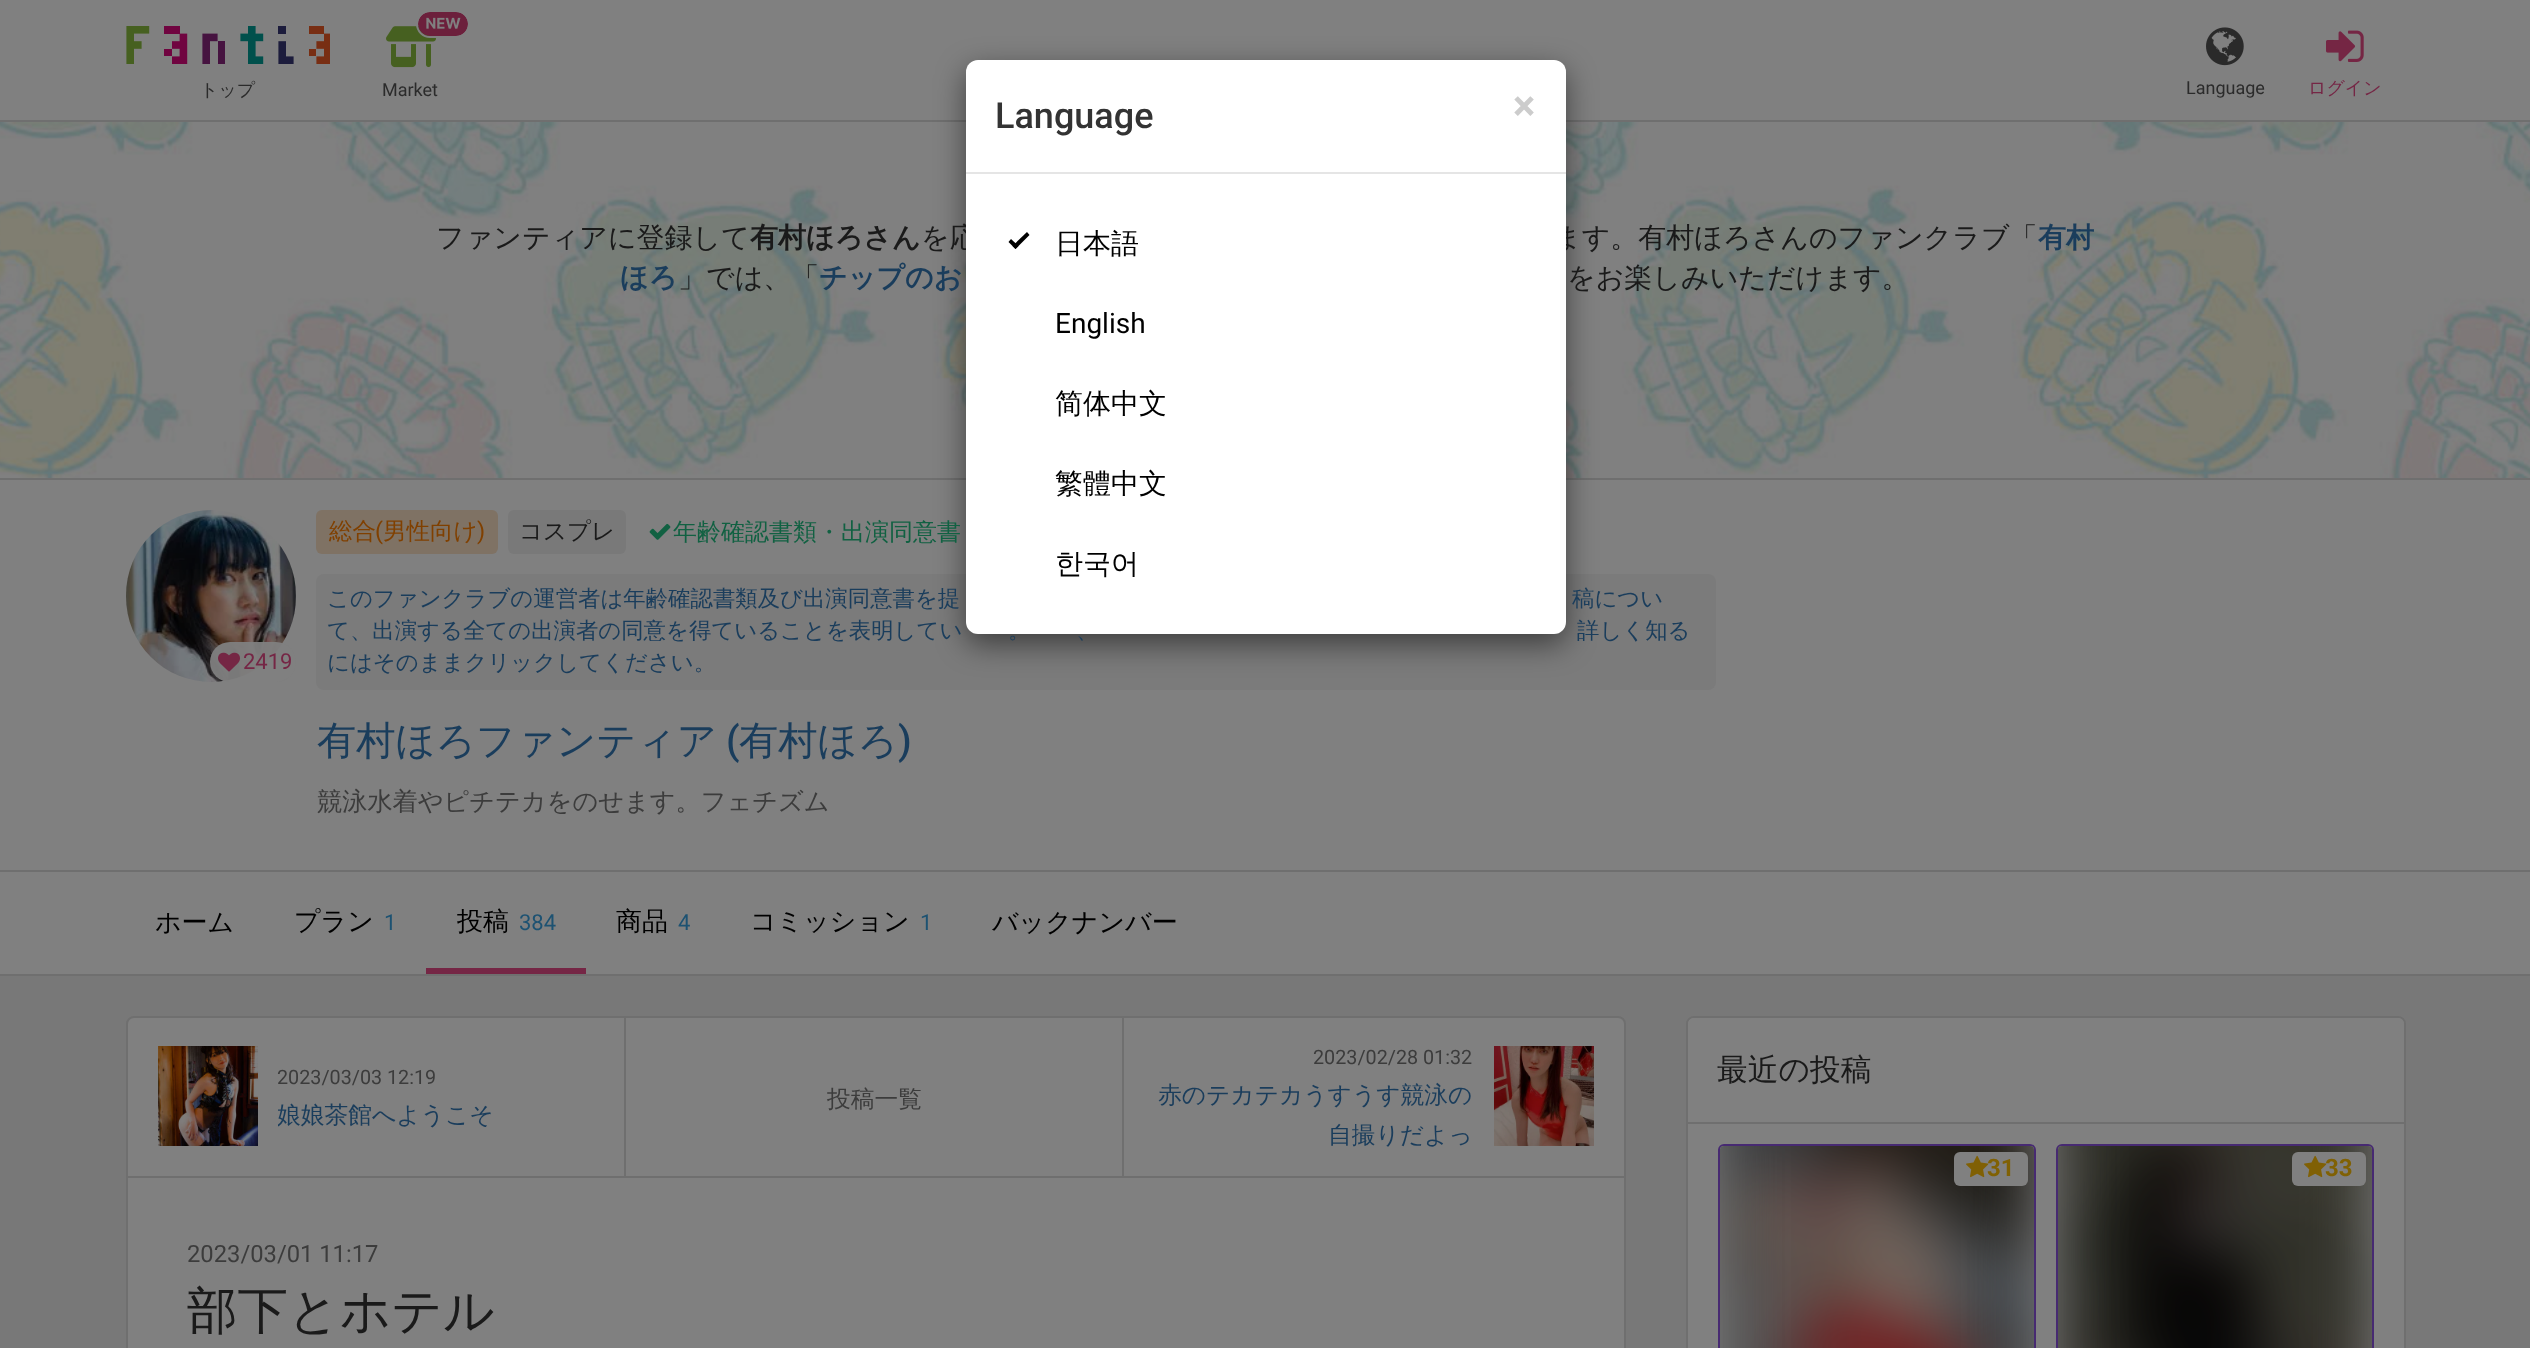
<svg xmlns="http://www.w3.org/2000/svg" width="2530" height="1348">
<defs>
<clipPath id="clip1"><rect x="278" y="1094" width="216" height="40"/></clipPath>
</defs>
<rect width="100%" height="100%" fill="#787878"/>
<rect width="2530" height="120" fill="#808080"/>
<rect y="120" width="2530" height="2" fill="#6f6f6f"/>
<image x="126" y="26" width="204" height="38" href="media/1.png"/>
<text x="200" y="96" style="font-family:WenQuanYi Zen Hei;font-size:18px;font-weight:500;fill:#2b2b2b">トップ</text>
<image x="386" y="26" width="50" height="42" href="media/2.png"/>
<rect x="417" y="11" width="52" height="26" rx="13" fill="none" stroke="#808080" stroke-width="2"/>
<image x="418" y="12" width="50" height="24" href="media/3.png"/>
<text x="382" y="96" style="font-family:Roboto;font-size:18px;fill:#2b2b2b">Market</text>
<image x="2206" y="27" width="38" height="39" href="media/4.png"/>
<text x="2186" y="94" style="font-family:Roboto;font-size:18px;fill:#2b2b2b">Language</text>
<image x="2326" y="30" width="38" height="32" href="media/5.png"/>
<text x="2308" y="94" style="font-family:WenQuanYi Zen Hei;font-size:18px;font-weight:500;fill:#752645">ログイン</text>
<image x="0" y="122" width="2530" height="356" href="media/6.png"/>
<rect y="478" width="2530" height="2" fill="#6f6f6f"/>
<rect y="480" width="2530" height="390" fill="#808080"/>
<rect x="316" y="574" width="1400" height="116" rx="8" fill="#7b7b7b"/>
<rect x="966" y="70" width="600" height="574" rx="12" fill="#00000080" filter="blur(15px)"/>
<text x="921" y="247" style="font-family:WenQuanYi Zen Hei;font-size:28px;font-weight:500;fill:#1a1a1a">を応</text>
<text x="1553" y="247" style="font-family:WenQuanYi Zen Hei;font-size:28px;font-weight:500;fill:#1a1a1a">ます。有村ほろさんのファンクラブ「</text>
<rect x="966" y="60" width="600" height="574" rx="12" fill="#fff"/>
<rect x="966" y="172" width="600" height="2" fill="#e5e5e5"/>
<text x="995" y="128" style="font-family:Roboto;font-size:36px;font-weight:500;fill:#333">Language</text>
<text x="1513" y="120" style="font-family:Roboto;font-size:42px;font-weight:bold;fill:#ccc">×</text>
<path d="M1012.5 246l14.5-14l2.5 3l-14 14z" fill="#000"/>
<path d="M1008.5 242l2.5-3l7.5 7l-3 3z" fill="#000"/>
<text x="1055" y="253" style="font-family:WenQuanYi Zen Hei;font-size:28px;font-weight:500;fill:#000">日本語</text>
<text x="1055" y="333" style="font-family:Roboto;font-size:28px;fill:#000">English</text>
<text x="1055" y="413" style="font-family:WenQuanYi Zen Hei;font-size:28px;font-weight:500;fill:#000">简体中文</text>
<text x="1055" y="493" style="font-family:WenQuanYi Zen Hei;font-size:28px;font-weight:500;fill:#000">繁體中文</text>
<text x="1055" y="573" style="font-family:WenQuanYi Zen Hei;font-size:28px;font-weight:500;fill:#000">한국어</text>
<text x="436" y="247" style="font-family:WenQuanYi Zen Hei;font-size:28px;font-weight:500;fill:#1a1a1a">ファンティアに登録して</text>
<text x="750" y="247" style="font-family:WenQuanYi Zen Hei;font-size:28px;font-weight:bold;fill:#1a1a1a">有村ほろさん</text>
<text x="2038" y="247" style="font-family:WenQuanYi Zen Hei;font-size:28px;font-weight:bold;fill:#1a3d5c">有村</text>
<text x="620" y="287" style="font-family:WenQuanYi Zen Hei;font-size:28px;font-weight:bold;fill:#1a3d5c">ほろ</text>
<text x="678" y="287" style="font-family:WenQuanYi Zen Hei;font-size:28px;font-weight:500;fill:#1a1a1a">」では、「</text>
<text x="819" y="287" style="font-family:WenQuanYi Zen Hei;font-size:28px;font-weight:bold;fill:#1a3d5c">チップのお</text>
<text x="1567" y="287" style="font-family:WenQuanYi Zen Hei;font-size:28px;font-weight:500;fill:#1a1a1a">をお楽しみいただけます。</text>
<rect y="870" width="2530" height="2" fill="#6f6f6f"/>
<image x="126" y="510" width="170" height="172" href="media/7.png"/>
<rect x="210" y="642" width="86" height="40" rx="20" fill="#808080f2"/>
<image x="218" y="652" width="22" height="20" href="media/8.png"/>
<text x="243" y="669" style="font-family:Roboto;font-size:22px;fill:#752645">2419</text>
<rect x="316" y="510" width="182" height="44" rx="6" fill="#7f7264"/>
<text x="329" y="539" style="font-family:WenQuanYi Zen Hei;font-size:23.5px;font-weight:500;fill:#804000">総合</text>
<text x="375" y="539" style="font-family:Roboto;font-size:23.5px;fill:#804000">(</text>
<text x="383" y="539" style="font-family:WenQuanYi Zen Hei;font-size:23.5px;font-weight:500;fill:#804000">男性向け</text>
<text x="477" y="539" style="font-family:Roboto;font-size:23.5px;fill:#804000">)</text>
<rect x="508" y="510" width="118" height="44" rx="6" fill="#797979"/>
<text x="519" y="539" style="font-family:WenQuanYi Zen Hei;font-size:23.5px;font-weight:500;fill:#1a1a1a">コスプレ</text>
<image x="649" y="523" width="22" height="17" href="media/9.png"/>
<text x="673" y="540" style="font-family:WenQuanYi Zen Hei;font-size:24px;font-weight:500;fill:#116142">年齢確認書類・出演同意書</text>
<text x="327" y="606" style="font-family:WenQuanYi Zen Hei;font-size:22.4px;font-weight:500;fill:#1a3d5c">このファンクラブの運営者は年齢確認書類及び出演同意書を提</text>
<text x="1572" y="606" style="font-family:WenQuanYi Zen Hei;font-size:22.4px;font-weight:500;fill:#1a3d5c">稿につい</text>
<text x="327" y="638" style="font-family:WenQuanYi Zen Hei;font-size:22.4px;font-weight:500;fill:#1a3d5c">て、出演する全ての出演者の同意を得ていることを表明してい</text>
<text x="1008" y="638" style="font-family:WenQuanYi Zen Hei;font-size:22.4px;font-weight:500;fill:#1a3d5c">。</text>
<text x="1076" y="638" style="font-family:WenQuanYi Zen Hei;font-size:22.4px;font-weight:500;fill:#1a3d5c">、</text>
<text x="1577" y="638" style="font-family:WenQuanYi Zen Hei;font-size:22.4px;font-weight:500;fill:#1a3d5c">詳しく知る</text>
<text x="327" y="670" style="font-family:WenQuanYi Zen Hei;font-size:22.4px;font-weight:500;fill:#1a3d5c">にはそのままクリックしてください。</text>
<text x="317" y="754" style="font-family:WenQuanYi Zen Hei;font-size:39.25px;font-weight:500;fill:#1a3d5c">有村ほろファンティア</text>
<text x="726" y="754" style="font-family:Roboto;font-size:39.25px;font-weight:500;fill:#1a3d5c">(</text>
<text x="739" y="754" style="font-family:WenQuanYi Zen Hei;font-size:39.25px;font-weight:500;fill:#1a3d5c">有村ほろ</text>
<text x="898" y="754" style="font-family:Roboto;font-size:39.25px;font-weight:500;fill:#1a3d5c">)</text>
<text x="317" y="810" style="font-family:WenQuanYi Zen Hei;font-size:25.2px;font-weight:500;fill:#3c3c3c">競泳水着やピチテカをのせます。フェチズム</text>
<rect y="872" width="2530" height="102" fill="#808080"/>
<rect y="974" width="2530" height="2" fill="#6f6f6f"/>
<text x="155" y="931" style="font-family:WenQuanYi Zen Hei;font-size:26px;font-weight:500;fill:#000">ホーム</text>
<text x="294" y="930" style="font-family:WenQuanYi Zen Hei;font-size:26px;font-weight:500;fill:#000">プラン</text>
<text x="384" y="930" style="font-family:Roboto;font-size:22px;fill:#1d5272">1</text>
<text x="457" y="930" style="font-family:WenQuanYi Zen Hei;font-size:26px;font-weight:500;fill:#000">投稿</text>
<text x="519" y="930" style="font-family:Roboto;font-size:22px;fill:#1d5272">384</text>
<rect x="426" y="968" width="160" height="6" fill="#752645"/>
<text x="616" y="930" style="font-family:WenQuanYi Zen Hei;font-size:26px;font-weight:500;fill:#000">商品</text>
<text x="678" y="930" style="font-family:Roboto;font-size:22px;fill:#1d5272">4</text>
<text x="750" y="930" style="font-family:WenQuanYi Zen Hei;font-size:26px;font-weight:500;fill:#000">コミッション</text>
<text x="920" y="930" style="font-family:Roboto;font-size:22px;fill:#1d5272">1</text>
<text x="992" y="931" style="font-family:WenQuanYi Zen Hei;font-size:26px;font-weight:500;fill:#000">バックナンバー</text>
<rect x="127" y="1017" width="1498" height="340" rx="7" fill="#808080" stroke="#6f6f6f" stroke-width="2"/>
<rect x="128" y="1176" width="1496" height="2" fill="#6f6f6f"/>
<rect x="624" y="1018" width="2" height="158" fill="#6f6f6f"/>
<image x="158" y="1046" width="100" height="100" href="media/10.png"/>
<text x="277" y="1084" style="font-family:Roboto;font-size:19.75px;fill:#3c3c3c">2023/03/03 12:19</text>
<g clip-path="url(#clip1)">
<text x="277" y="1123" style="font-family:WenQuanYi Zen Hei;font-size:23.75px;font-weight:500;fill:#1a3d5c">娘娘茶館へようこそ</text>
</g>
<rect x="1122" y="1018" width="2" height="158" fill="#6f6f6f"/>
<text x="827" y="1107" style="font-family:WenQuanYi Zen Hei;font-size:23.75px;font-weight:500;fill:#3c3c3c">投稿一覧</text>
<text x="1313" y="1064" style="font-family:Roboto;font-size:19.75px;fill:#3c3c3c">2023/02/28 01:32</text>
<text x="1158" y="1103" style="font-family:WenQuanYi Zen Hei;font-size:23.75px;font-weight:500;fill:#1a3d5c">赤のテカテカうすうす競泳の</text>
<text x="1328" y="1143" style="font-family:WenQuanYi Zen Hei;font-size:23.75px;font-weight:500;fill:#1a3d5c">自撮りだよっ</text>
<image x="1494" y="1046" width="100" height="100" href="media/11.png"/>
<text x="187" y="1262" style="font-family:Roboto;font-size:23.75px;fill:#3c3c3c">2023/03/01 11:17</text>
<text x="187" y="1328" style="font-family:WenQuanYi Zen Hei;font-size:50.5px;font-weight:500;fill:#1a1a1a">部下とホテル</text>
<rect x="1687" y="1017" width="718" height="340" rx="7" fill="#808080" stroke="#6f6f6f" stroke-width="2"/>
<path d="M1694 1018h704c3.5 0 6 2.5 6 6v100h-716v-100c0-3.5 2.5-6 6-6z" fill="#808080"/>
<rect x="1688" y="1122" width="716" height="2" fill="#6f6f6f"/>
<text x="1717" y="1080" style="font-family:WenQuanYi Zen Hei;font-size:30.75px;font-weight:500;fill:#1a1a1a">最近の投稿</text>
<rect x="1719" y="1145" width="316" height="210" rx="5" fill="none" stroke="#472a72" stroke-width="2"/>
<rect x="1720" y="1146" width="314" height="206" rx="4" fill="#808080"/>
<image x="1720" y="1146" width="314" height="202" href="media/12.png"/>
<rect x="1954" y="1152" width="74" height="34" rx="6" fill="#808080"/>
<image x="1966" y="1155" width="23" height="23" href="media/13.png"/>
<text x="1987" y="1176" style="font-family:Roboto;font-size:24px;font-weight:bold;fill:#806104">31</text>
<rect x="2057" y="1145" width="316" height="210" rx="5" fill="none" stroke="#472a72" stroke-width="2"/>
<rect x="2058" y="1146" width="314" height="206" rx="4" fill="#808080"/>
<image x="2058" y="1146" width="314" height="202" href="media/14.png"/>
<rect x="2292" y="1152" width="74" height="34" rx="6" fill="#808080"/>
<image x="2304" y="1155" width="23" height="23" href="media/13.png"/>
<text x="2325" y="1176" style="font-family:Roboto;font-size:24px;font-weight:bold;fill:#806104">33</text>
</svg>
